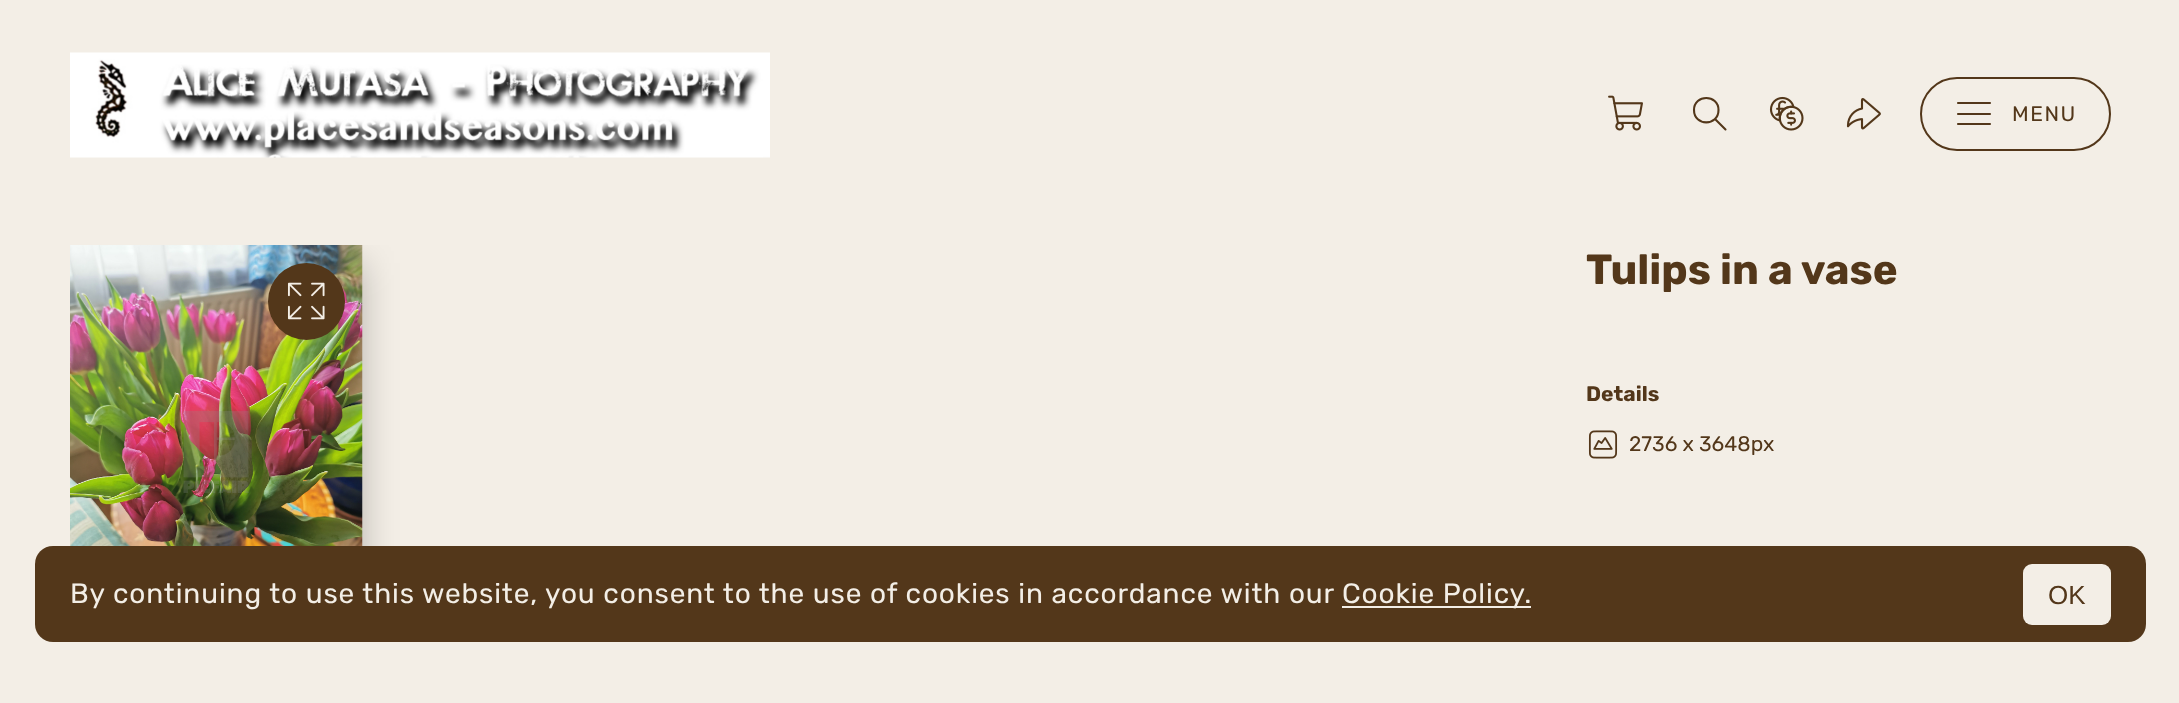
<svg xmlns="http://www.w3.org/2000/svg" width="2179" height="703">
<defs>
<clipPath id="clip1"><rect x="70" y="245" width="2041" height="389"/></clipPath>
</defs>
<rect width="100%" height="100%" fill="#f3eee6"/>
<image x="70" y="52" width="700" height="106" href="media/1.png"/>
<image x="1608" y="95" width="35" height="36" href="media/2.png"/>
<path d="M1725.5 129.5l-10.5-10.5m3.5-9c0 16.5-24.5 16.5-24.5 0c0-16 24.5-16 24.5 0z" fill="none" stroke="#53371a" stroke-width="2.1" stroke-linecap="round" stroke-linejoin="round"/>
<image x="1769" y="96" width="35" height="35" href="media/3.png"/>
<image x="1846" y="98" width="35" height="32" href="media/4.png"/>
<rect x="1921" y="78" width="189" height="72" rx="36" fill="none" stroke="#53371a" stroke-width="2"/>
<path d="M1958 114h32m-32-11h32m-32 21h32" fill="none" stroke="#53371a" stroke-width="2.1" stroke-linecap="round" stroke-linejoin="round"/>
<text x="2012" y="121" style="font-family:Rubik;font-size:21px;letter-spacing:1.5px;fill:#53371a">MENU</text>
<g clip-path="url(#clip1)">
<rect x="70" y="263" width="292" height="388" fill="#00000040" filter="blur(17.5px)"/>
</g>
<image x="70" y="245" width="293" height="301" href="media/5.png"/>
<circle cx="306.5" cy="301.5" r="38.5" fill="#53371a"/>
<image x="287" y="282" width="38" height="38" href="media/6.png"/>
<text x="1586" y="284" style="font-family:Rubik;font-size:42px;font-weight:bold;fill:#53371a">Tulips in a vase</text>
<text x="1586" y="401" style="font-family:Rubik;font-size:21px;font-weight:bold;fill:#53371a">Details</text>
<image x="1588" y="430" width="30" height="29" href="media/7.png"/>
<text x="1629" y="451" style="font-family:Rubik;font-size:21px;fill:#53371a">2736 x 3648px</text>
<rect x="35" y="546" width="2111" height="96" rx="18" fill="#53371a"/>
<text x="70" y="603" style="font-family:Rubik;font-size:28px;letter-spacing:0.88px;fill:#f3eee6">By continuing to use this website, you consent to the use of cookies in accordance with our</text>
<rect x="1342" y="606" width="189" height="2" fill="#f3eee6"/>
<text x="1342" y="603" style="font-family:Rubik;font-size:28px;letter-spacing:0.88px;fill:#f3eee6">Cookie Policy.</text>
<rect x="2023" y="564" width="88" height="61" rx="9" fill="#f3eee6"/>
<text x="2048" y="604" style="font-family:Liberation Sans;font-size:26px;fill:#53371a">OK</text>
</svg>
